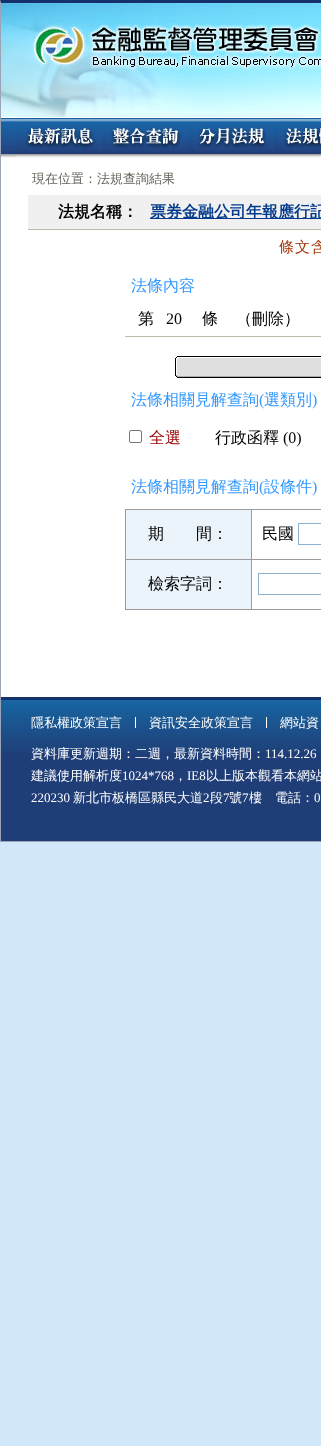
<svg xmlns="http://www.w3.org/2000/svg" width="321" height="1446">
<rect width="100%" height="100%" fill="#d0e8fa"/>
<rect x="1" y="117" width="320" height="580" fill="#fff"/>
<rect y="841" width="321" height="1" fill="#9ba4b6"/>
<rect width="1" height="842" fill="#9ba4b6"/>
<image x="1" y="3" width="320" height="114" href="media/1.png"/>
<path d="M0 0h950l-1 3h-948z" fill="#14316b"/>
<path d="M0 117v-117l1 3v114z" fill="#9ba4b6"/>
<image x="1" y="118" width="320" height="40" href="media/2.png"/>
<image x="17" y="118" width="86" height="39" href="media/3.png"/>
<image x="103" y="118" width="86" height="39" href="media/4.png"/>
<image x="189" y="118" width="86" height="39" href="media/5.png"/>
<image x="275" y="118" width="46" height="39" href="media/6.png"/>
<text x="32" y="183" style="font-family:WenQuanYi Zen Hei;font-size:13px;font-weight:500;fill:#64645b">現在位置：法規查詢結果</text>
<rect x="28" y="195" width="293" height="34" fill="#f0f0f0"/>
<text x="58" y="217" style="font-family:WenQuanYi Zen Hei;font-size:16px;font-weight:bold;fill:#000">法規名稱：</text>
<rect x="28" y="229" width="293" height="1" fill="#c0baa8"/>
<rect x="150" y="218" width="171" height="1" fill="#053b8c"/>
<text x="150" y="217" style="font-family:WenQuanYi Zen Hei;font-size:16px;font-weight:bold;fill:#053b8c">票券金融公司年報應行記</text>
<text x="279" y="252" style="font-family:WenQuanYi Zen Hei;font-size:15px;font-weight:500;letter-spacing:1px;fill:#a23104">條文含</text>
<text x="131" y="291" style="font-family:WenQuanYi Zen Hei;font-size:16px;font-weight:500;fill:#39f">法條內容</text>
<text x="138" y="324" style="font-family:WenQuanYi Zen Hei;font-size:16px;font-weight:500;fill:#000">第</text>
<text x="166" y="324" style="font-family:Liberation Serif;font-size:16px;fill:#000">20</text>
<text x="202" y="324" style="font-family:WenQuanYi Zen Hei;font-size:16px;font-weight:500;fill:#000">條</text>
<text x="236" y="324" style="font-family:WenQuanYi Zen Hei;font-size:16px;font-weight:500;fill:#000">（刪除）</text>
<rect x="125" y="336" width="196" height="1" fill="#c0baa8"/>
<image x="175" y="356" width="146" height="22" href="media/7.png"/>
<text x="131" y="405" style="font-family:WenQuanYi Zen Hei;font-size:16px;font-weight:500;fill:#39f">法條相關見解查詢</text>
<text x="259" y="405" style="font-family:Liberation Serif;font-size:16px;fill:#39f">(</text>
<text x="264" y="405" style="font-family:WenQuanYi Zen Hei;font-size:16px;font-weight:500;fill:#39f">選類別</text>
<text x="312" y="405" style="font-family:Liberation Serif;font-size:16px;fill:#39f">)</text>
<rect x="129.5" y="430.5" width="12" height="12" rx="1.5" fill="none" stroke="#767676"/>
<text x="149" y="443" style="font-family:WenQuanYi Zen Hei;font-size:16px;font-weight:500;fill:#900">全選</text>
<text x="215" y="443" style="font-family:WenQuanYi Zen Hei;font-size:16px;font-weight:500;fill:#000">行政函釋</text>
<text x="283" y="443" style="font-family:Liberation Serif;font-size:16px;fill:#000">(0)</text>
<text x="131" y="492" style="font-family:WenQuanYi Zen Hei;font-size:16px;font-weight:500;fill:#39f">法條相關見解查詢</text>
<text x="259" y="492" style="font-family:Liberation Serif;font-size:16px;fill:#39f">(</text>
<text x="264" y="492" style="font-family:WenQuanYi Zen Hei;font-size:16px;font-weight:500;fill:#39f">設條件</text>
<text x="312" y="492" style="font-family:Liberation Serif;font-size:16px;fill:#39f">)</text>
<rect x="125" y="509" width="196" height="1" fill="#9d9a9b"/>
<rect x="125" y="609" width="196" height="1" fill="#9d9a9b"/>
<rect x="125" y="509" width="1" height="101" fill="#9d9a9b"/>
<rect x="126" y="510" width="125" height="49" fill="#ecf4fb"/>
<text x="148" y="539" style="font-family:WenQuanYi Zen Hei;font-size:16px;font-weight:500;fill:#000">期　　間：</text>
<rect x="251" y="559" width="70" height="1" fill="#9d9a9b"/>
<rect x="251" y="559" width="1" height="51" fill="#9d9a9b"/>
<rect x="125" y="559" width="127" height="1" fill="#9d9a9b"/>
<rect x="251" y="509" width="1" height="51" fill="#9d9a9b"/>
<text x="262" y="539" style="font-family:WenQuanYi Zen Hei;font-size:16px;font-weight:500;fill:#000">民國</text>
<rect x="298.5" y="523.5" width="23" height="21" fill="none" stroke="#8cb0cf"/>
<rect x="126" y="560" width="125" height="49" fill="#ecf4fb"/>
<text x="148" y="589" style="font-family:WenQuanYi Zen Hei;font-size:16px;font-weight:500;fill:#000">檢索字詞：</text>
<rect x="258.5" y="573.5" width="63" height="21" fill="none" stroke="#8cb0cf"/>
<rect x="1" y="753" width="320" height="88" fill="#1f3d76"/>
<image x="1" y="697" width="320" height="56" href="media/8.png"/>
<rect x="135" y="717" width="1" height="11" fill="#fff"/>
<text x="31" y="727" style="font-family:WenQuanYi Zen Hei;font-size:13px;font-weight:500;fill:#fff">隱私權政策宣言</text>
<rect x="266" y="717" width="1" height="11" fill="#fff"/>
<text x="149" y="727" style="font-family:WenQuanYi Zen Hei;font-size:13px;font-weight:500;fill:#fff">資訊安全政策宣言</text>
<text x="280" y="727" style="font-family:WenQuanYi Zen Hei;font-size:13px;font-weight:500;fill:#fff">網站資</text>
<text x="31" y="758" style="font-family:WenQuanYi Zen Hei;font-size:13px;font-weight:500;fill:#fff">資料庫更新週期：二週，最新資料時間：</text>
<text x="265" y="758" style="font-family:Liberation Serif;font-size:13px;fill:#fff">114.12.26</text>
<text x="31" y="780" style="font-family:WenQuanYi Zen Hei;font-size:13px;font-weight:500;fill:#fff">建議使用解析度</text>
<text x="122" y="780" style="font-family:Liberation Serif;font-size:13px;fill:#fff">1024*768</text>
<text x="174" y="780" style="font-family:WenQuanYi Zen Hei;font-size:13px;font-weight:500;fill:#fff">，</text>
<text x="187" y="780" style="font-family:Liberation Serif;font-size:13px;fill:#fff">IE8</text>
<text x="206" y="780" style="font-family:WenQuanYi Zen Hei;font-size:13px;font-weight:500;fill:#fff">以上版本觀看本網站</text>
<text x="31" y="802" style="font-family:Liberation Serif;font-size:13px;fill:#fff">220230</text>
<text x="73" y="802" style="font-family:WenQuanYi Zen Hei;font-size:13px;font-weight:500;fill:#fff">新北市板橋區縣民大道</text>
<text x="203" y="802" style="font-family:Liberation Serif;font-size:13px;fill:#fff">2</text>
<text x="210" y="802" style="font-family:WenQuanYi Zen Hei;font-size:13px;font-weight:500;fill:#fff">段</text>
<text x="223" y="802" style="font-family:Liberation Serif;font-size:13px;fill:#fff">7</text>
<text x="229" y="802" style="font-family:WenQuanYi Zen Hei;font-size:13px;font-weight:500;fill:#fff">號</text>
<text x="242" y="802" style="font-family:Liberation Serif;font-size:13px;fill:#fff">7</text>
<text x="249" y="802" style="font-family:WenQuanYi Zen Hei;font-size:13px;font-weight:500;fill:#fff">樓　電話：</text>
<text x="314" y="802" style="font-family:Liberation Serif;font-size:13px;fill:#fff">0</text>
</svg>
